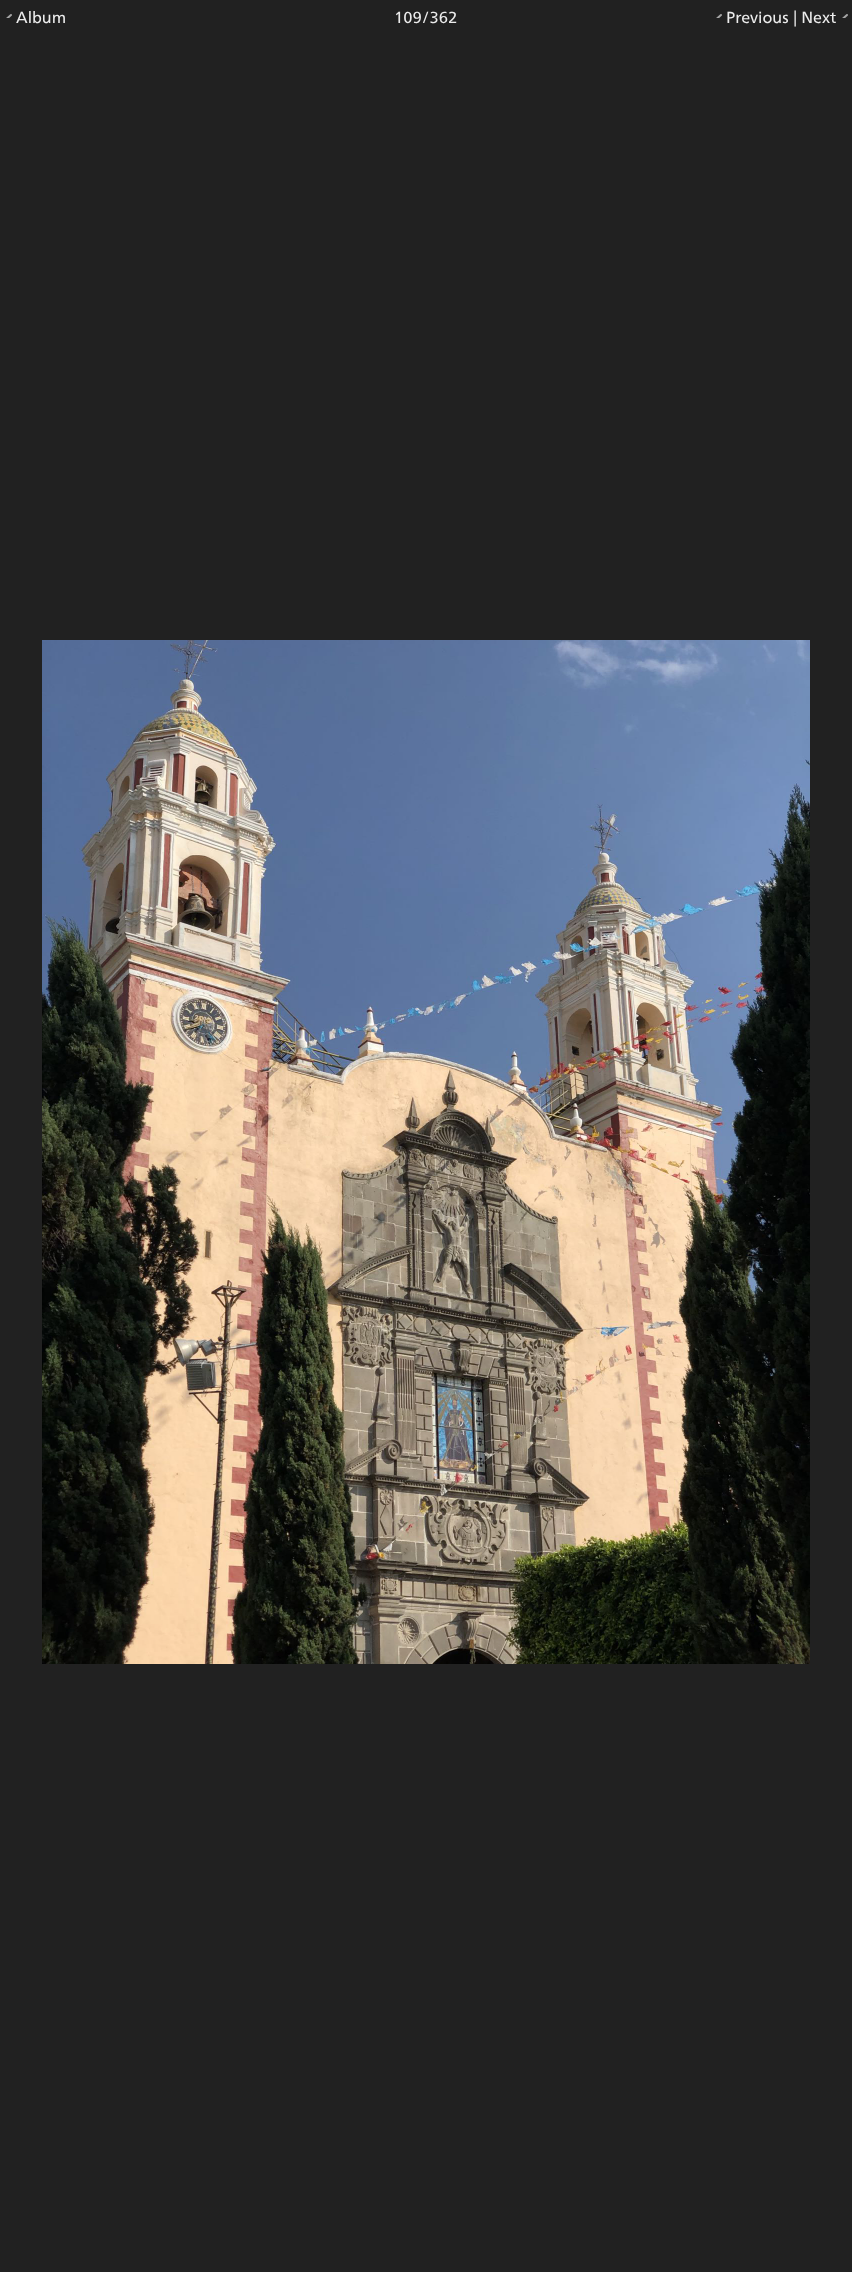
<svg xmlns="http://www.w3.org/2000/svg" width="852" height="2272">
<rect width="100%" height="100%" fill="#212121"/>
<image x="6" y="14" width="6" height="4" href="media/1.png"/>
<text x="16" y="23" style="font-family:'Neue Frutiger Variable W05';font-size:16px;fill:#ececec">Album</text>
<text x="394" y="23" style="font-family:'Neue Frutiger Variable W05';font-size:16px;fill:#ececec">109/362</text>
<image x="716" y="14" width="6" height="4" href="media/1.png"/>
<text x="726" y="23" style="font-family:'Neue Frutiger Variable W05';font-size:16px;fill:#ececec">Previous</text>
<text x="793" y="23" style="font-family:'Neue Frutiger Variable W05';font-size:16px;fill:#ececec">| Next</text>
<image x="842" y="14" width="6" height="4" href="media/1.png"/>
<image x="42" y="640" width="768" height="1024" href="media/2.png"/>
</svg>
